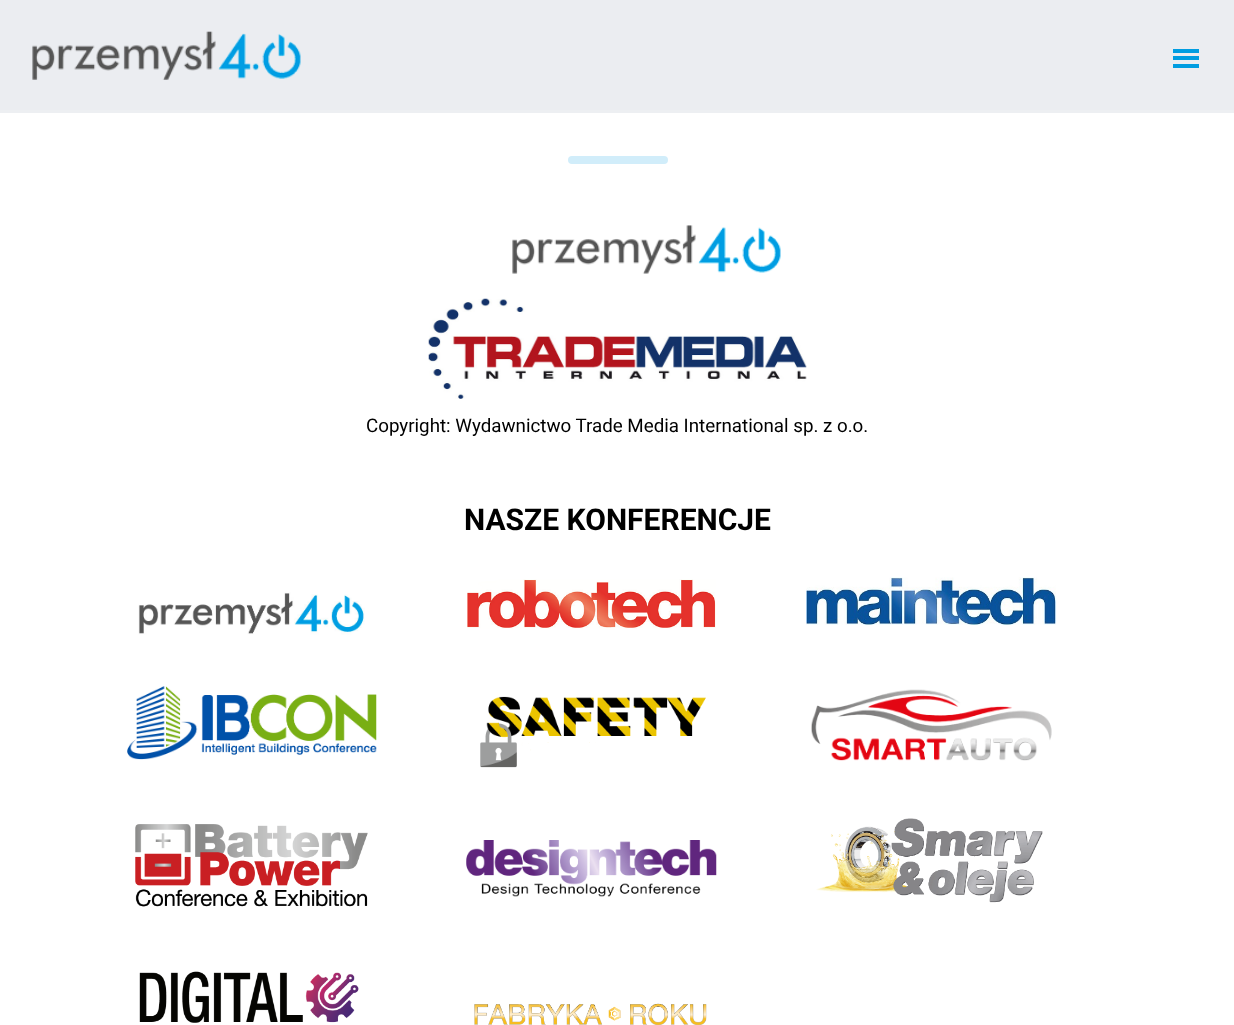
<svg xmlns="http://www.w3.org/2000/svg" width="1234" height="1025">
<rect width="100%" height="100%" fill="#fff"/>
<rect width="1234" height="110" fill="#ebedf1"/>
<rect y="110" width="1234" height="3" fill="#edeff2"/>
<image x="32" y="31" width="269" height="49" href="media/1.png"/>
<rect x="1173" y="56" width="26" height="4" fill="#009de1"/>
<rect x="1173" y="49" width="26" height="4" fill="#009de1"/>
<rect x="1173" y="64" width="26" height="4" fill="#009de1"/>
<rect x="568" y="156" width="100" height="8" rx="4" fill="#d1edfa"/>
<image x="512" y="225" width="269" height="49" href="media/2.png"/>
<image x="428" y="298" width="379" height="101" href="media/3.png"/>
<text x="366" y="432" style="font-family:Roboto;font-size:18.75px;fill:#000">Copyright: Wydawnictwo Trade Media International sp. z o.o.</text>
<text x="464" y="530" style="font-family:Roboto;font-size:30px;font-weight:bold;fill:#000">NASZE KONFERENCJE</text>
<image x="138" y="592" width="227" height="43" href="media/4.png"/>
<image x="467" y="579" width="249" height="50" href="media/5.png"/>
<image x="806" y="577" width="251" height="48" href="media/6.png"/>
<image x="127" y="686" width="250" height="74" href="media/7.png"/>
<image x="480" y="696" width="226" height="72" href="media/8.png"/>
<image x="811" y="689" width="241" height="72" href="media/9.png"/>
<image x="135" y="824" width="233" height="83" href="media/10.png"/>
<image x="466" y="840" width="251" height="57" href="media/11.png"/>
<image x="816" y="818" width="227" height="85" href="media/12.png"/>
<image x="139" y="971" width="220" height="52" href="media/13.png"/>
<image x="474" y="1003" width="233" height="22" href="media/14.png"/>
</svg>
